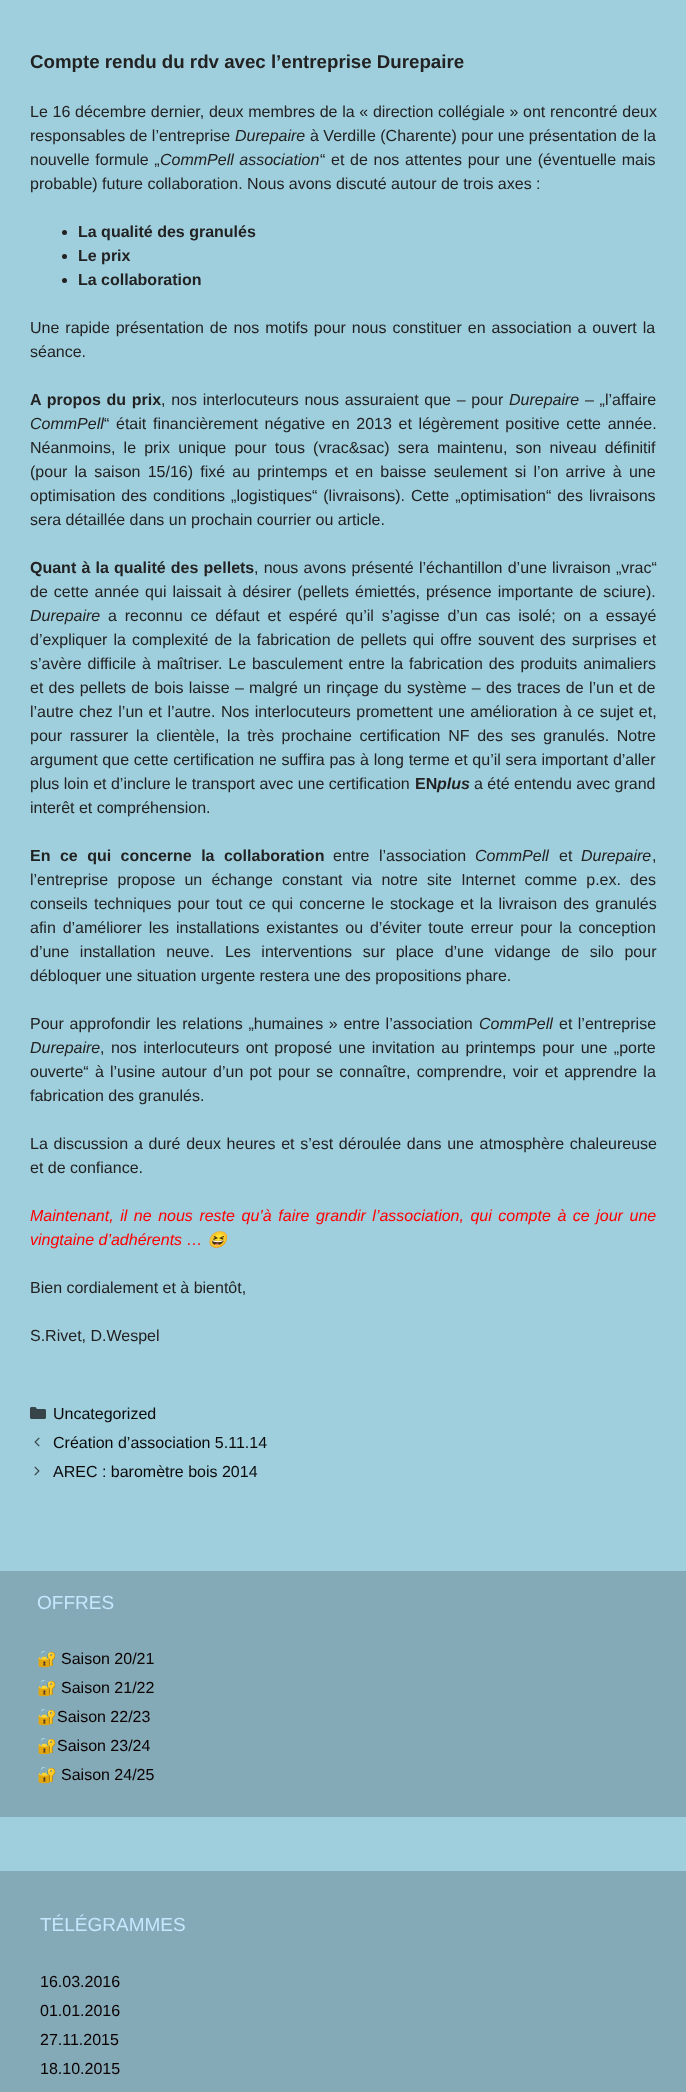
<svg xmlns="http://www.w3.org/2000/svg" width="686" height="2092">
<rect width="100%" height="100%" fill="#9fcedd"/>
<text x="30" y="68" style="font-family:Liberation Sans;font-size:18.7px;font-weight:bold;fill:#222">Compte rendu du rdv avec l’entreprise Durepaire</text>
<text x="30" y="117" word-spacing="0.25" style="font-family:Liberation Sans;font-size:16px;fill:#222">Le 16 décembre dernier, deux membres de la « direction collégiale » ont rencontré deux</text>
<text x="30" y="141" style="font-family:Liberation Sans;font-size:16px;fill:#222">responsables de l’entreprise</text>
<text x="235" y="141" style="font-family:Liberation Sans;font-size:16px;font-style:italic;fill:#222">Durepaire</text>
<text x="310" y="141" style="font-family:Liberation Sans;font-size:16px;fill:#222">à Verdille (Charente) pour une présentation de la</text>
<text x="30" y="165" word-spacing="1.25" style="font-family:Liberation Sans;font-size:16px;fill:#222">nouvelle formule „</text>
<text x="160" y="165" word-spacing="1" style="font-family:Liberation Sans;font-size:16px;font-style:italic;fill:#222">CommPell association</text>
<text x="320" y="165" word-spacing="1.25" style="font-family:Liberation Sans;font-size:16px;fill:#222">“ et de nos attentes pour une (éventuelle mais</text>
<text x="30" y="189" style="font-family:Liberation Sans;font-size:16px;fill:#222">probable) future collaboration. Nous avons discuté autour de trois axes :</text>
<circle cx="64.5" cy="232.5" r="2.5" fill="#222"/>
<text x="78" y="237" style="font-family:Liberation Sans;font-size:16px;font-weight:bold;fill:#222">La qualité des granulés</text>
<circle cx="64.5" cy="256.5" r="2.5" fill="#222"/>
<text x="78" y="261" style="font-family:Liberation Sans;font-size:16px;font-weight:bold;fill:#222">Le prix</text>
<circle cx="64.5" cy="280.5" r="2.5" fill="#222"/>
<text x="78" y="285" style="font-family:Liberation Sans;font-size:16px;font-weight:bold;fill:#222">La collaboration</text>
<text x="30" y="333" word-spacing="1.5" style="font-family:Liberation Sans;font-size:16px;fill:#222">Une rapide présentation de nos motifs pour nous constituer en association a ouvert la</text>
<text x="30" y="357" style="font-family:Liberation Sans;font-size:16px;fill:#222">séance.</text>
<text x="30" y="405" word-spacing="1.25" style="font-family:Liberation Sans;font-size:16px;font-weight:bold;fill:#222">A propos du prix</text>
<text x="161" y="405" word-spacing="1.25" style="font-family:Liberation Sans;font-size:16px;fill:#222">, nos interlocuteurs nous assuraient que – pour</text>
<text x="509" y="405" style="font-family:Liberation Sans;font-size:16px;font-style:italic;fill:#222">Durepaire</text>
<text x="585" y="405" word-spacing="1.25" style="font-family:Liberation Sans;font-size:16px;fill:#222">– „l’affaire</text>
<text x="30" y="429" style="font-family:Liberation Sans;font-size:16px;font-style:italic;fill:#222">CommPell</text>
<text x="104" y="429" word-spacing="2.25" style="font-family:Liberation Sans;font-size:16px;fill:#222">“ était financièrement négative en 2013 et légèrement positive cette année.</text>
<text x="30" y="453" word-spacing="3.75" style="font-family:Liberation Sans;font-size:16px;fill:#222">Néanmoins, le prix unique pour tous (vrac&amp;sac) sera maintenu, son niveau définitif</text>
<text x="30" y="477" word-spacing="2.75" style="font-family:Liberation Sans;font-size:16px;fill:#222">(pour la saison 15/16) fixé au printemps et en baisse seulement si l’on arrive à une</text>
<text x="30" y="501" word-spacing="1.5" style="font-family:Liberation Sans;font-size:16px;fill:#222">optimisation des conditions „logistiques“ (livraisons). Cette „optimisation“ des livraisons</text>
<text x="30" y="525" style="font-family:Liberation Sans;font-size:16px;fill:#222">sera détaillée dans un prochain courrier ou article.</text>
<text x="30" y="573" word-spacing="0.75" style="font-family:Liberation Sans;font-size:16px;font-weight:bold;fill:#222">Quant à la qualité des pellets</text>
<text x="254" y="573" word-spacing="0.75" style="font-family:Liberation Sans;font-size:16px;fill:#222">, nous avons présenté l’échantillon d’une livraison „vrac“</text>
<text x="30" y="597" word-spacing="1.6" style="font-family:Liberation Sans;font-size:16px;fill:#222">de cette année qui laissait à désirer (pellets émiettés, présence importante de sciure).</text>
<text x="30" y="621" style="font-family:Liberation Sans;font-size:16px;font-style:italic;fill:#222">Durepaire</text>
<text x="108" y="621" word-spacing="3.4" style="font-family:Liberation Sans;font-size:16px;fill:#222">a reconnu ce défaut et espéré qu’il s’agisse d’un cas isolé; on a essayé</text>
<text x="30" y="645" word-spacing="1.6" style="font-family:Liberation Sans;font-size:16px;fill:#222">d’expliquer la complexité de la fabrication de pellets qui offre souvent des surprises et</text>
<text x="30" y="669" word-spacing="1.4" style="font-family:Liberation Sans;font-size:16px;fill:#222">s’avère difficile à maîtriser. Le basculement entre la fabrication des produits animaliers</text>
<text x="30" y="693" word-spacing="0.8" style="font-family:Liberation Sans;font-size:16px;fill:#222">et des pellets de bois laisse – malgré un rinçage du système – des traces de l’un et de</text>
<text x="30" y="717" word-spacing="1" style="font-family:Liberation Sans;font-size:16px;fill:#222">l’autre chez l’un et l’autre. Nos interlocuteurs promettent une amélioration à ce sujet et,</text>
<text x="30" y="741" word-spacing="3.25" style="font-family:Liberation Sans;font-size:16px;fill:#222">pour rassurer la clientèle, la très prochaine certification NF des ses granulés. Notre</text>
<text x="30" y="765" word-spacing="0.3" style="font-family:Liberation Sans;font-size:16px;fill:#222">argument que cette certification ne suffira pas à long terme et qu’il sera important d’aller</text>
<text x="30" y="789" style="font-family:Liberation Sans;font-size:16px;fill:#222">plus loin et d’inclure le transport avec une certification</text>
<text x="415" y="789" style="font-family:Liberation Sans;font-size:16px;font-weight:bold;fill:#222">EN</text>
<text x="437" y="789" style="font-family:Liberation Sans;font-size:16px;font-weight:bold;font-style:italic;fill:#222">plus</text>
<text x="474" y="789" style="font-family:Liberation Sans;font-size:16px;fill:#222">a été entendu avec grand</text>
<text x="30" y="813" style="font-family:Liberation Sans;font-size:16px;fill:#222">interêt et compréhension.</text>
<text x="30" y="861" word-spacing="5" style="font-family:Liberation Sans;font-size:16px;font-weight:bold;fill:#222">En ce qui concerne la collaboration</text>
<text x="333" y="861" word-spacing="5" style="font-family:Liberation Sans;font-size:16px;fill:#222">entre l’association</text>
<text x="475" y="861" style="font-family:Liberation Sans;font-size:16px;font-style:italic;fill:#222">CommPell</text>
<text x="559" y="861" style="font-family:Liberation Sans;font-size:16px;fill:#222">et</text>
<text x="581" y="861" style="font-family:Liberation Sans;font-size:16px;font-style:italic;fill:#222">Durepaire</text>
<text x="652" y="861" style="font-family:Liberation Sans;font-size:16px;fill:#222">,</text>
<text x="30" y="885" word-spacing="4.75" style="font-family:Liberation Sans;font-size:16px;fill:#222">l’entreprise propose un échange constant via notre site Internet comme p.ex. des</text>
<text x="30" y="909" word-spacing="1.75" style="font-family:Liberation Sans;font-size:16px;fill:#222">conseils techniques pour tout ce qui concerne le stockage et la livraison des granulés</text>
<text x="30" y="933" word-spacing="2.4" style="font-family:Liberation Sans;font-size:16px;fill:#222">afin d’améliorer les installations existantes ou d’éviter toute erreur pour la conception</text>
<text x="30" y="957" word-spacing="6.25" style="font-family:Liberation Sans;font-size:16px;fill:#222">d’une installation neuve. Les interventions sur place d’une vidange de silo pour</text>
<text x="30" y="981" style="font-family:Liberation Sans;font-size:16px;fill:#222">débloquer une situation urgente restera une des propositions phare.</text>
<text x="30" y="1029" word-spacing="1.25" style="font-family:Liberation Sans;font-size:16px;fill:#222">Pour approfondir les relations „humaines » entre l’association</text>
<text x="479" y="1029" style="font-family:Liberation Sans;font-size:16px;font-style:italic;fill:#222">CommPell</text>
<text x="559" y="1029" word-spacing="1" style="font-family:Liberation Sans;font-size:16px;fill:#222">et l’entreprise</text>
<text x="30" y="1053" style="font-family:Liberation Sans;font-size:16px;font-style:italic;fill:#222">Durepaire</text>
<text x="100" y="1053" word-spacing="2" style="font-family:Liberation Sans;font-size:16px;fill:#222">, nos interlocuteurs ont proposé une invitation au printemps pour une „porte</text>
<text x="30" y="1077" word-spacing="1.75" style="font-family:Liberation Sans;font-size:16px;fill:#222">ouverte“ à l’usine autour d’un pot pour se connaître, comprendre, voir et apprendre la</text>
<text x="30" y="1101" style="font-family:Liberation Sans;font-size:16px;fill:#222">fabrication des granulés.</text>
<text x="30" y="1149" word-spacing="1.25" style="font-family:Liberation Sans;font-size:16px;fill:#222">La discussion a duré deux heures et s’est déroulée dans une atmosphère chaleureuse</text>
<text x="30" y="1173" style="font-family:Liberation Sans;font-size:16px;fill:#222">et de confiance.</text>
<text x="30" y="1221" word-spacing="2.1" style="font-family:Liberation Sans;font-size:16px;font-style:italic;fill:#f00">Maintenant, il ne nous reste qu’à faire grandir l’association, qui compte à ce jour une</text>
<text x="30" y="1245" style="font-family:Liberation Sans;font-size:16px;font-style:italic;fill:#f00">vingtaine d’adhérents …</text>
<text x="207" y="1245" style="font-family:Noto Color Emoji;font-size:16px;font-style:italic;fill:#f00">😆</text>
<text x="30" y="1293" style="font-family:Liberation Sans;font-size:16px;fill:#222">Bien cordialement et à bientôt,</text>
<text x="30" y="1341" style="font-family:Liberation Sans;font-size:16px;fill:#222">S.Rivet, D.Wespel</text>
<image x="30" y="1407" width="16" height="12" href="media/1.png"/>
<text x="53" y="1419" style="font-family:Liberation Sans;font-size:16px;fill:#0a0a0a">Uncategorized</text>
<image x="34" y="1437" width="6" height="10" href="media/2.png"/>
<text x="53" y="1448" style="font-family:Liberation Sans;font-size:16px;fill:#0a0a0a">Création d’association 5.11.14</text>
<image x="34" y="1466" width="6" height="10" href="media/3.png"/>
<text x="53" y="1477" style="font-family:Liberation Sans;font-size:16px;fill:#0a0a0a">AREC : baromètre bois 2014</text>
<rect y="1571" width="686" height="246" fill="#84a9b7"/>
<text x="37" y="1609" style="font-family:Liberation Sans;font-size:19px;fill:#c6e8ff">OFFRES</text>
<text x="37" y="1664" style="font-family:Noto Color Emoji;font-size:16px;fill:#0a0000">🔐</text>
<text x="61" y="1664" style="font-family:Liberation Sans;font-size:16px;fill:#0a0000">Saison 20/21</text>
<text x="37" y="1693" style="font-family:Noto Color Emoji;font-size:16px;fill:#0a0000">🔐</text>
<text x="61" y="1693" style="font-family:Liberation Sans;font-size:16px;fill:#0a0000">Saison 21/22</text>
<text x="37" y="1722" style="font-family:Noto Color Emoji;font-size:16px;fill:#0a0000">🔐</text>
<text x="57" y="1722" style="font-family:Liberation Sans;font-size:16px;fill:#0a0000">Saison 22/23</text>
<text x="37" y="1751" style="font-family:Noto Color Emoji;font-size:16px;fill:#0a0000">🔐</text>
<text x="57" y="1751" style="font-family:Liberation Sans;font-size:16px;fill:#0a0000">Saison 23/24</text>
<text x="37" y="1780" style="font-family:Noto Color Emoji;font-size:16px;fill:#0a0000">🔐</text>
<text x="61" y="1780" style="font-family:Liberation Sans;font-size:16px;fill:#0a0000">Saison 24/25</text>
<rect y="1871" width="686" height="221" fill="#84a9b7"/>
<text x="40" y="1931" style="font-family:Liberation Sans;font-size:19px;fill:#c6e8ff">TÉLÉGRAMMES</text>
<text x="40" y="1987" style="font-family:Liberation Sans;font-size:16px;fill:#0a0000">16.03.2016</text>
<text x="40" y="2016" style="font-family:Liberation Sans;font-size:16px;fill:#0a0000">01.01.2016</text>
<text x="40" y="2045" style="font-family:Liberation Sans;font-size:16px;fill:#0a0000">27.11.2015</text>
<text x="40" y="2074" style="font-family:Liberation Sans;font-size:16px;fill:#0a0000">18.10.2015</text>
</svg>
